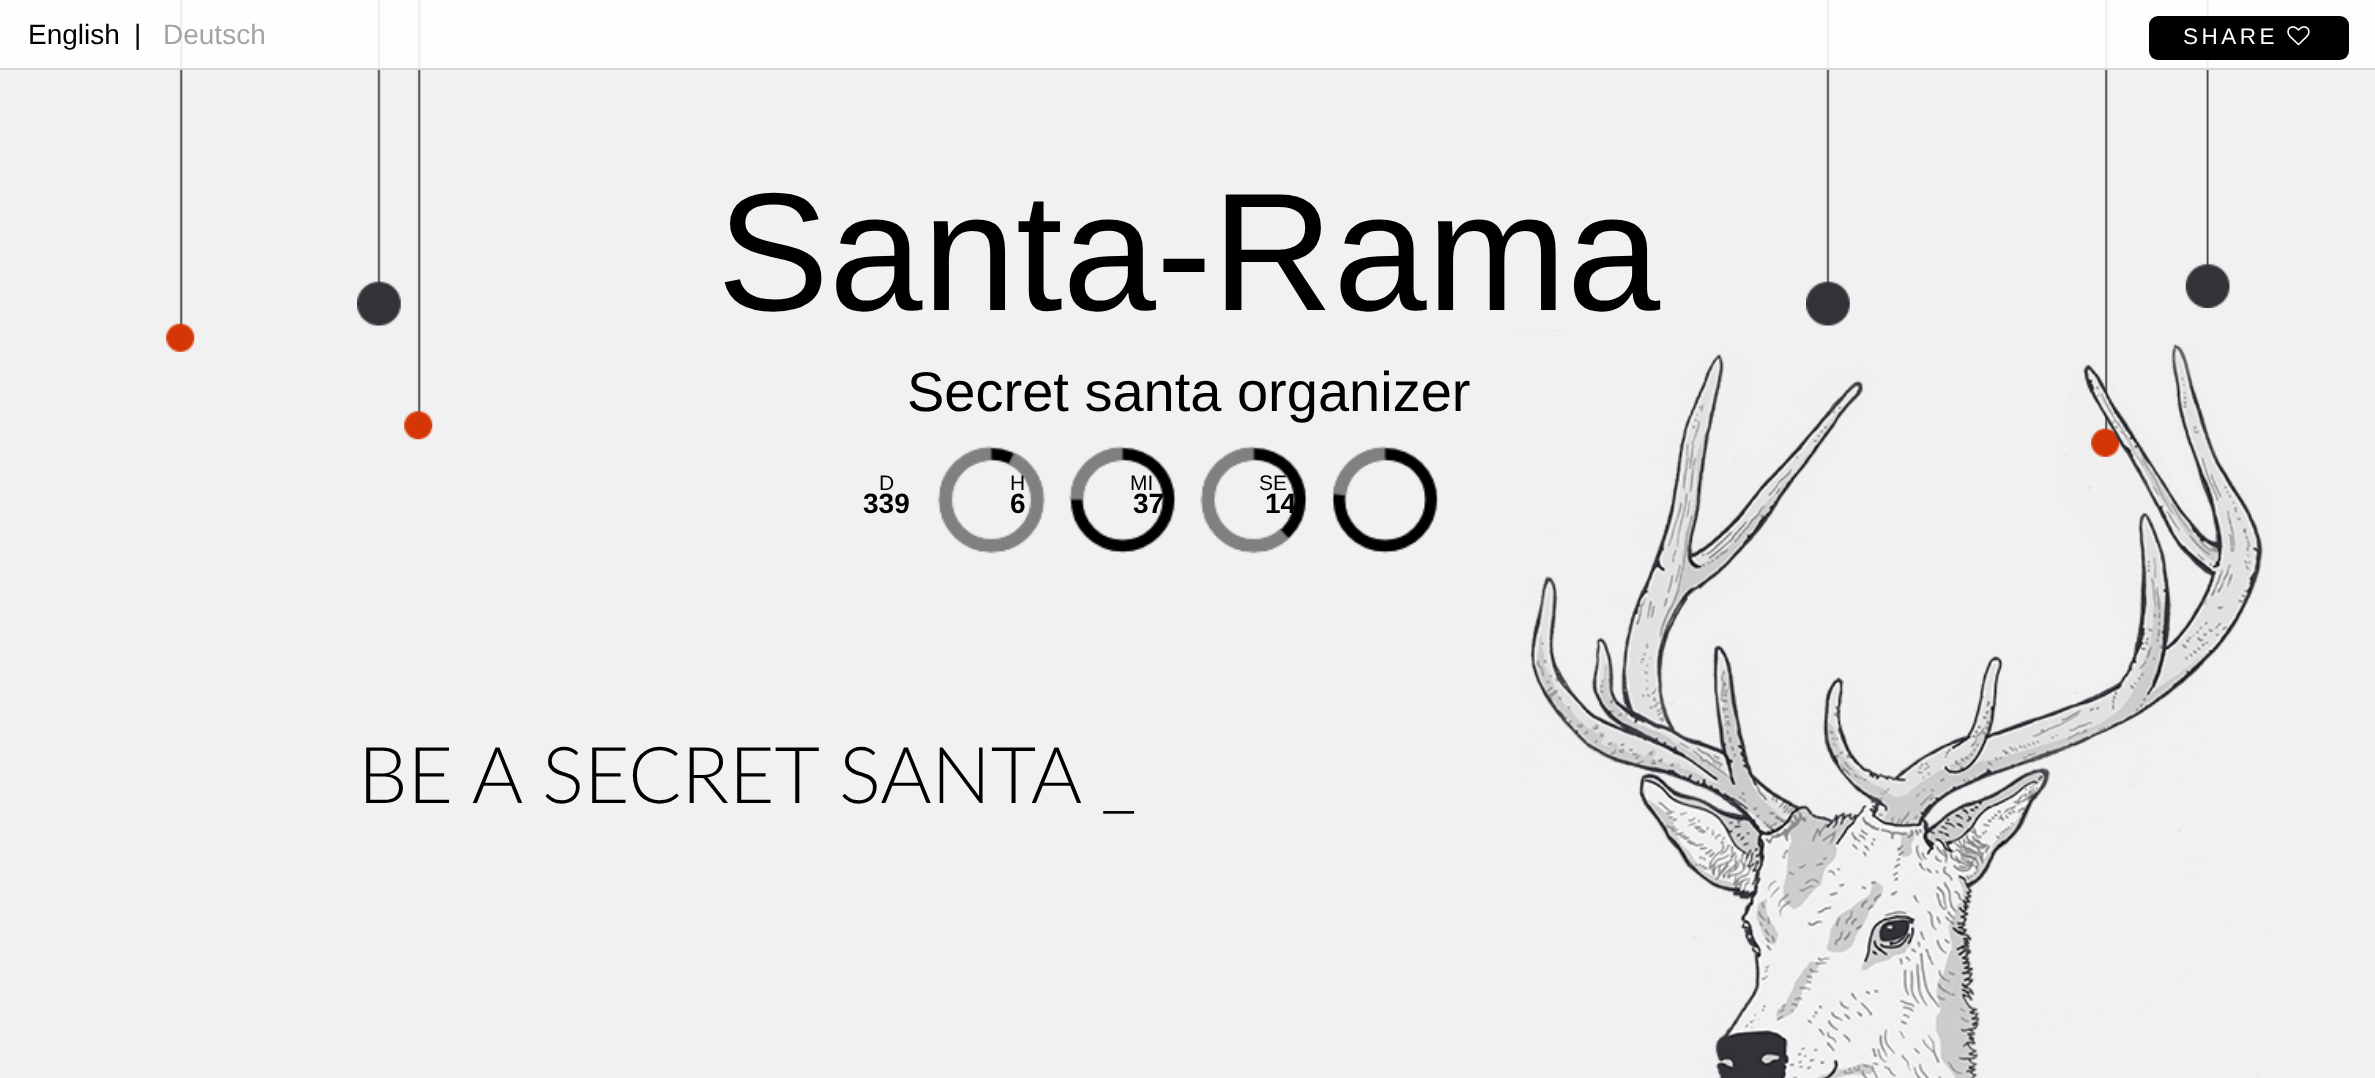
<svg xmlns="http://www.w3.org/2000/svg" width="2375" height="1078">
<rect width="100%" height="100%" fill="#f1f1f1"/>
<image x="166" y="0" width="29" height="352" href="media/1.png"/>
<image x="357" y="0" width="44" height="326" href="media/2.png"/>
<image x="404" y="0" width="29" height="440" href="media/3.png"/>
<image x="1806" y="0" width="44" height="326" href="media/4.png"/>
<image x="2091" y="0" width="29" height="457" href="media/5.png"/>
<image x="2185" y="0" width="45" height="308" href="media/6.png"/>
<rect width="2375" height="68" fill="#ffffffe6"/>
<rect y="68" width="2375" height="2" fill="#d7d7d7"/>
<text x="28" y="44" style="font-family:Liberation Sans;font-size:28px;fill:#000">English</text>
<text x="134" y="44" style="font-family:Liberation Sans;font-size:28px;fill:#000">|</text>
<text x="163" y="44" style="font-family:Liberation Sans;font-size:28px;fill:#a4a4a4">Deutsch</text>
<rect x="2149" y="16" width="200" height="44" rx="9" fill="#000"/>
<text x="2183" y="44" style="font-family:Liberation Sans;font-size:22.5px;letter-spacing:3.5px;fill:#fff">SHARE</text>
<image x="2287" y="26" width="23" height="20" href="media/7.png"/>
<text x="717" y="310" style="font-family:Liberation Sans;font-size:168px;fill:#000">Santa-Rama</text>
<text x="907" y="411" style="font-family:Liberation Sans;font-size:56px;fill:#000">Secret santa organizer</text>
<text x="879" y="490" style="font-family:Liberation Sans;font-size:21px;fill:#000">D</text>
<text x="863" y="513" style="font-family:Liberation Sans;font-size:28px;font-weight:bold;fill:#000">339</text>
<image x="937" y="446" width="502" height="108" href="media/8.png"/>
<text x="1010" y="490" style="font-family:Liberation Sans;font-size:21px;fill:#000">H</text>
<text x="1010" y="513" style="font-family:Liberation Sans;font-size:28px;font-weight:bold;fill:#000">6</text>
<text x="1130" y="490" style="font-family:Liberation Sans;font-size:21px;fill:#000">MI</text>
<text x="1133" y="513" style="font-family:Liberation Sans;font-size:28px;font-weight:bold;fill:#000">37</text>
<text x="1259" y="490" style="font-family:Liberation Sans;font-size:21px;fill:#000">SE</text>
<text x="1265" y="513" style="font-family:Liberation Sans;font-size:28px;font-weight:bold;fill:#000">14</text>
<image x="1517" y="329" width="756" height="749" href="media/9.png"/>
<text x="358" y="803" style="font-family:Lato;font-size:78.5px;font-weight:300;fill:#000">BE A SECRET SANTA _</text>
</svg>
